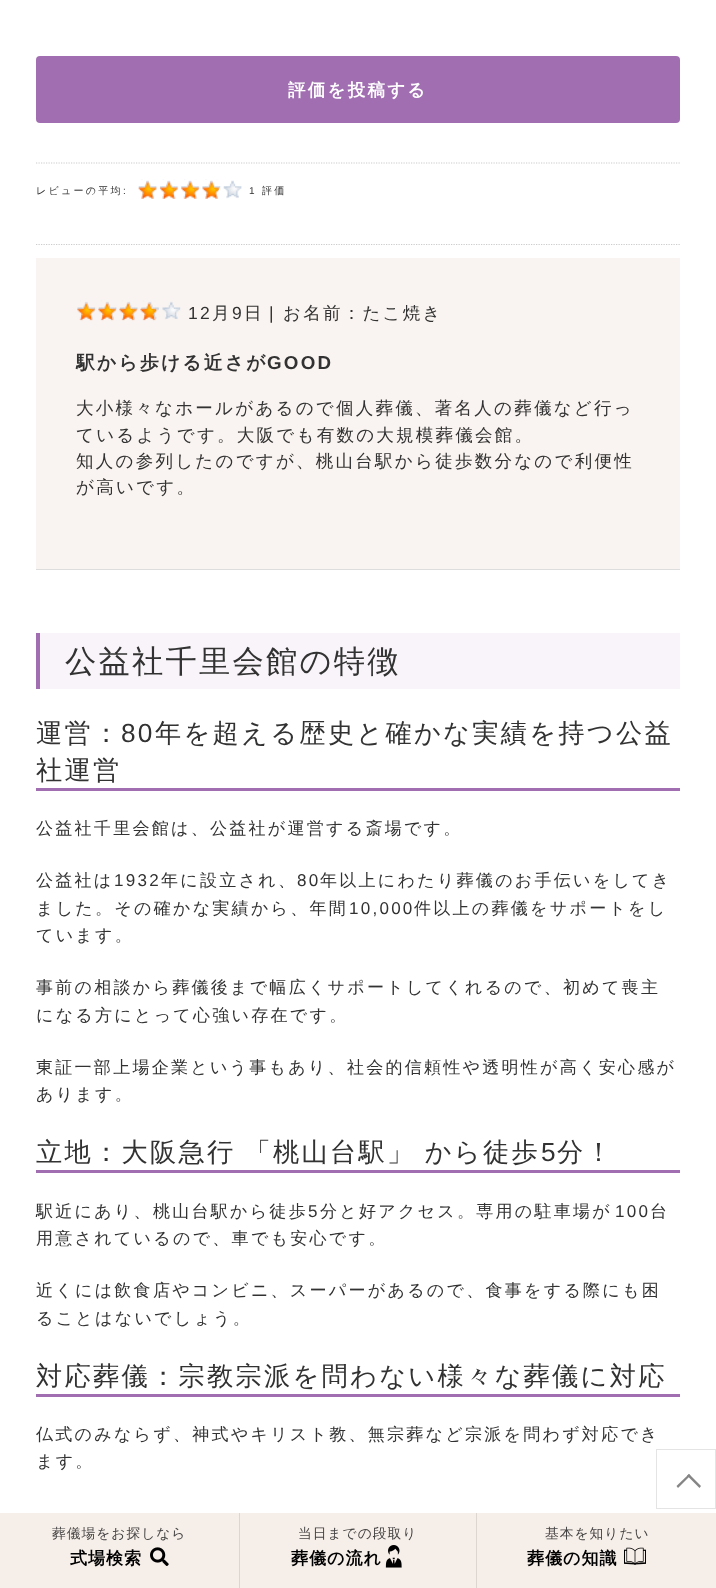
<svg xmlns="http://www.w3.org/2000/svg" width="716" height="1588">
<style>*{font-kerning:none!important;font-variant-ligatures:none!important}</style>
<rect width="100%" height="100%" fill="#fff"/>
<rect x="36" y="56" width="644" height="67" rx="4" fill="#a16eb1"/>
<text x="288" y="96" style="font-family:WenQuanYi Zen Hei;font-size:17.5px;font-weight:bold;letter-spacing:2.25px;fill:#fff">評価を投稿する</text>
<path d="M36 163h644" fill="none" stroke="#ccc" stroke-width="1.2" stroke-dasharray="1.25 1.25"/>
<text x="36" y="194" style="font-family:WenQuanYi Zen Hei;font-size:10px;font-weight:500;letter-spacing:2.25px;fill:#323232">レビューの平均</text>
<text x="123" y="194" style="font-family:Liberation Sans;font-size:10px;letter-spacing:2.25px;fill:#323232">:</text>
<image x="138" y="180" width="104" height="19" href="media/1.png"/>
<image x="138" y="179" width="81" height="20" href="media/2.png"/>
<text x="249" y="194" style="font-family:Liberation Sans;font-size:10px;letter-spacing:2.25px;fill:#323232">1</text>
<text x="262" y="194" style="font-family:WenQuanYi Zen Hei;font-size:10px;font-weight:500;letter-spacing:2.25px;fill:#323232">評価</text>
<path d="M36 244.5h644" fill="none" stroke="#ccc" stroke-width="1.2" stroke-dasharray="1.25 1.25"/>
<rect x="36" y="258" width="644" height="311" fill="#f9f4f1"/>
<rect x="36" y="569" width="644" height="1" fill="#ddd"/>
<image x="77" y="301" width="104" height="19" href="media/3.png"/>
<image x="77" y="300" width="80" height="21" href="media/4.png"/>
<text x="188" y="319" style="font-family:Liberation Sans;font-size:17.5px;letter-spacing:2.25px;fill:#323232">12</text>
<text x="212" y="319" style="font-family:WenQuanYi Zen Hei;font-size:17.5px;font-weight:500;letter-spacing:2.25px;fill:#323232">月</text>
<text x="232" y="319" style="font-family:Liberation Sans;font-size:17.5px;letter-spacing:2.25px;fill:#323232">9</text>
<text x="244" y="319" style="font-family:WenQuanYi Zen Hei;font-size:17.5px;font-weight:500;letter-spacing:2.25px;fill:#323232">日</text>
<text x="269" y="319" style="font-family:Liberation Sans;font-size:17.5px;letter-spacing:2.25px;fill:#323232">|</text>
<text x="283" y="319" style="font-family:WenQuanYi Zen Hei;font-size:17.5px;font-weight:500;letter-spacing:2.25px;fill:#323232">お名前：たこ焼き</text>
<text x="76" y="369" style="font-family:WenQuanYi Zen Hei;font-size:18.75px;font-weight:bold;letter-spacing:2.25px;fill:#323232">駅から歩ける近さが</text>
<text x="267" y="369" style="font-family:Liberation Sans;font-size:18.75px;font-weight:bold;letter-spacing:2.25px;fill:#323232">GOOD</text>
<text x="76" y="414" style="font-family:WenQuanYi Zen Hei;font-size:17.5px;font-weight:500;letter-spacing:2.25px;fill:#323232">大小様々なホールがあるので個人葬儀、著名人の葬儀など行っ</text>
<text x="76" y="441" style="font-family:WenQuanYi Zen Hei;font-size:17.5px;font-weight:500;letter-spacing:2.25px;fill:#323232">ているようです。大阪でも有数の大規模葬儀会館。</text>
<text x="76" y="467" style="font-family:WenQuanYi Zen Hei;font-size:17.5px;font-weight:500;letter-spacing:2.25px;fill:#323232">知人の参列したのですが、桃山台駅から徒歩数分なので利便性</text>
<text x="76" y="493" style="font-family:WenQuanYi Zen Hei;font-size:17.5px;font-weight:500;letter-spacing:2.25px;fill:#323232">が高いです。</text>
<rect x="40" y="633" width="640" height="56" fill="#f8f4f9"/>
<rect x="36" y="633" width="4" height="56" fill="#a16eb1"/>
<text x="65" y="672" style="font-family:WenQuanYi Zen Hei;font-size:31.25px;font-weight:500;letter-spacing:2.25px;fill:#323232">公益社千里会館の特徴</text>
<rect x="36" y="788" width="644" height="3" fill="#a16eb1"/>
<text x="36" y="742" style="font-family:WenQuanYi Zen Hei;font-size:26.25px;font-weight:500;letter-spacing:2.25px;fill:#323232">運営：</text>
<text x="121" y="742" style="font-family:Liberation Sans;font-size:26.25px;letter-spacing:2.25px;fill:#323232">80</text>
<text x="155" y="742" style="font-family:WenQuanYi Zen Hei;font-size:26.25px;font-weight:500;letter-spacing:2.25px;fill:#323232">年を超える歴史と確かな実績を持つ公益</text>
<text x="36" y="779" style="font-family:WenQuanYi Zen Hei;font-size:26.25px;font-weight:500;letter-spacing:2.25px;fill:#323232">社運営</text>
<text x="36" y="834" style="font-family:WenQuanYi Zen Hei;font-size:17.05px;font-weight:500;letter-spacing:2.25px;fill:#323232">公益社千里会館は、公益社が運営する斎場です。</text>
<text x="36" y="886" style="font-family:WenQuanYi Zen Hei;font-size:17.05px;font-weight:500;letter-spacing:2.25px;fill:#323232">公益社は</text>
<text x="114" y="886" style="font-family:Liberation Sans;font-size:17.05px;letter-spacing:2.25px;fill:#323232">1932</text>
<text x="161" y="886" style="font-family:WenQuanYi Zen Hei;font-size:17.05px;font-weight:500;letter-spacing:2.25px;fill:#323232">年に設立され、</text>
<text x="297" y="886" style="font-family:Liberation Sans;font-size:17.05px;letter-spacing:2.25px;fill:#323232">80</text>
<text x="320" y="886" style="font-family:WenQuanYi Zen Hei;font-size:17.05px;font-weight:500;letter-spacing:2.25px;fill:#323232">年以上にわたり葬儀のお手伝いをしてき</text>
<text x="36" y="914" style="font-family:WenQuanYi Zen Hei;font-size:17.05px;font-weight:500;letter-spacing:2.25px;fill:#323232">ました。その確かな実績から、年間</text>
<text x="349" y="914" style="font-family:Liberation Sans;font-size:17.05px;letter-spacing:2.25px;fill:#323232">10,000</text>
<text x="414" y="914" style="font-family:WenQuanYi Zen Hei;font-size:17.05px;font-weight:500;letter-spacing:2.25px;fill:#323232">件以上の葬儀をサポートをし</text>
<text x="36" y="941" style="font-family:WenQuanYi Zen Hei;font-size:17.05px;font-weight:500;letter-spacing:2.25px;fill:#323232">ています。</text>
<text x="36" y="993" style="font-family:WenQuanYi Zen Hei;font-size:17.05px;font-weight:500;letter-spacing:2.25px;fill:#323232">事前の相談から葬儀後まで幅広くサポートしてくれるので、初めて喪主</text>
<text x="36" y="1021" style="font-family:WenQuanYi Zen Hei;font-size:17.05px;font-weight:500;letter-spacing:2.25px;fill:#323232">になる方にとって心強い存在です。</text>
<text x="36" y="1073" style="font-family:WenQuanYi Zen Hei;font-size:17.05px;font-weight:500;letter-spacing:2.25px;fill:#323232">東証一部上場企業という事もあり、社会的信頼性や透明性が高く安心感が</text>
<text x="36" y="1100" style="font-family:WenQuanYi Zen Hei;font-size:17.05px;font-weight:500;letter-spacing:2.25px;fill:#323232">あります。</text>
<rect x="36" y="1170" width="644" height="3" fill="#a16eb1"/>
<text x="36" y="1161" word-spacing="-1" style="font-family:WenQuanYi Zen Hei;font-size:26.25px;font-weight:500;letter-spacing:2.25px;fill:#323232">立地：大阪急行 「桃山台駅」 から徒歩</text>
<text x="541" y="1161" style="font-family:Liberation Sans;font-size:26.25px;letter-spacing:2.25px;fill:#323232">5</text>
<text x="557" y="1161" style="font-family:WenQuanYi Zen Hei;font-size:26.25px;font-weight:500;letter-spacing:2.25px;fill:#323232">分！</text>
<text x="36" y="1217" style="font-family:WenQuanYi Zen Hei;font-size:17.05px;font-weight:500;letter-spacing:2.25px;fill:#323232">駅近にあり、桃山台駅から徒歩</text>
<text x="308" y="1217" style="font-family:Liberation Sans;font-size:17.05px;letter-spacing:2.25px;fill:#323232">5</text>
<text x="320" y="1217" style="font-family:WenQuanYi Zen Hei;font-size:17.05px;font-weight:500;letter-spacing:2.25px;fill:#323232">分と好アクセス。専用の駐車場が</text>
<text x="615" y="1217" style="font-family:Liberation Sans;font-size:17.05px;letter-spacing:2.25px;fill:#323232">100</text>
<text x="650" y="1217" style="font-family:WenQuanYi Zen Hei;font-size:17.05px;font-weight:500;letter-spacing:2.25px;fill:#323232">台</text>
<text x="36" y="1244" style="font-family:WenQuanYi Zen Hei;font-size:17.05px;font-weight:500;letter-spacing:2.25px;fill:#323232">用意されているので、車でも安心です。</text>
<text x="36" y="1296" style="font-family:WenQuanYi Zen Hei;font-size:17.05px;font-weight:500;letter-spacing:2.25px;fill:#323232">近くには飲食店やコンビニ、スーパーがあるので、食事をする際にも困</text>
<text x="36" y="1324" style="font-family:WenQuanYi Zen Hei;font-size:17.05px;font-weight:500;letter-spacing:2.25px;fill:#323232">ることはないでしょう。</text>
<rect x="36" y="1394" width="644" height="3" fill="#a16eb1"/>
<text x="36" y="1385" style="font-family:WenQuanYi Zen Hei;font-size:26.25px;font-weight:500;letter-spacing:2.25px;fill:#323232">対応葬儀：宗教宗派を問わない様々な葬儀に対応</text>
<text x="36" y="1440" style="font-family:WenQuanYi Zen Hei;font-size:17.05px;font-weight:500;letter-spacing:2.25px;fill:#323232">仏式のみならず、神式やキリスト教、無宗葬など宗派を問わず対応でき</text>
<text x="36" y="1467" style="font-family:WenQuanYi Zen Hei;font-size:17.05px;font-weight:500;letter-spacing:2.25px;fill:#323232">ます。</text>
<rect x="656.5" y="1449.5" width="59" height="59" fill="none" stroke="#ddddddcc"/>
<path d="M678 1488l-1.5-2l12.5-12l1.5 1.5z" fill="#858585"/>
<path d="M699.5 1488l-12.5-12.5l2-1.5l12 12z" fill="#858585"/>
<rect y="1513" width="716" height="75" fill="#f6eee8"/>
<text x="52" y="1538" style="font-family:WenQuanYi Zen Hei;font-size:13.75px;font-weight:500;letter-spacing:1px;fill:#464545">葬儀場をお探しなら</text>
<text x="70" y="1564" style="font-family:WenQuanYi Zen Hei;font-size:17.05px;font-weight:bold;letter-spacing:1px;fill:#000">式場検索</text>
<image x="150" y="1547" width="19" height="19" href="media/5.png"/>
<rect x="476" y="1513" width="1" height="75" fill="#ddd6d0"/>
<rect x="239" y="1513" width="1" height="75" fill="#ddd6d0"/>
<text x="298" y="1538" style="font-family:WenQuanYi Zen Hei;font-size:13.75px;font-weight:500;letter-spacing:1px;fill:#464545">当日までの段取り</text>
<text x="291" y="1564" style="font-family:WenQuanYi Zen Hei;font-size:17.05px;font-weight:bold;letter-spacing:1px;fill:#000">葬儀の流れ</text>
<image x="385" y="1545" width="17" height="23" href="media/6.png"/>
<text x="545" y="1538" style="font-family:WenQuanYi Zen Hei;font-size:13.75px;font-weight:500;letter-spacing:1px;fill:#464545">基本を知りたい</text>
<text x="527" y="1564" style="font-family:WenQuanYi Zen Hei;font-size:17.05px;font-weight:bold;letter-spacing:1px;fill:#000">葬儀の知識</text>
<image x="624" y="1547" width="22" height="18" href="media/7.png"/>
</svg>
